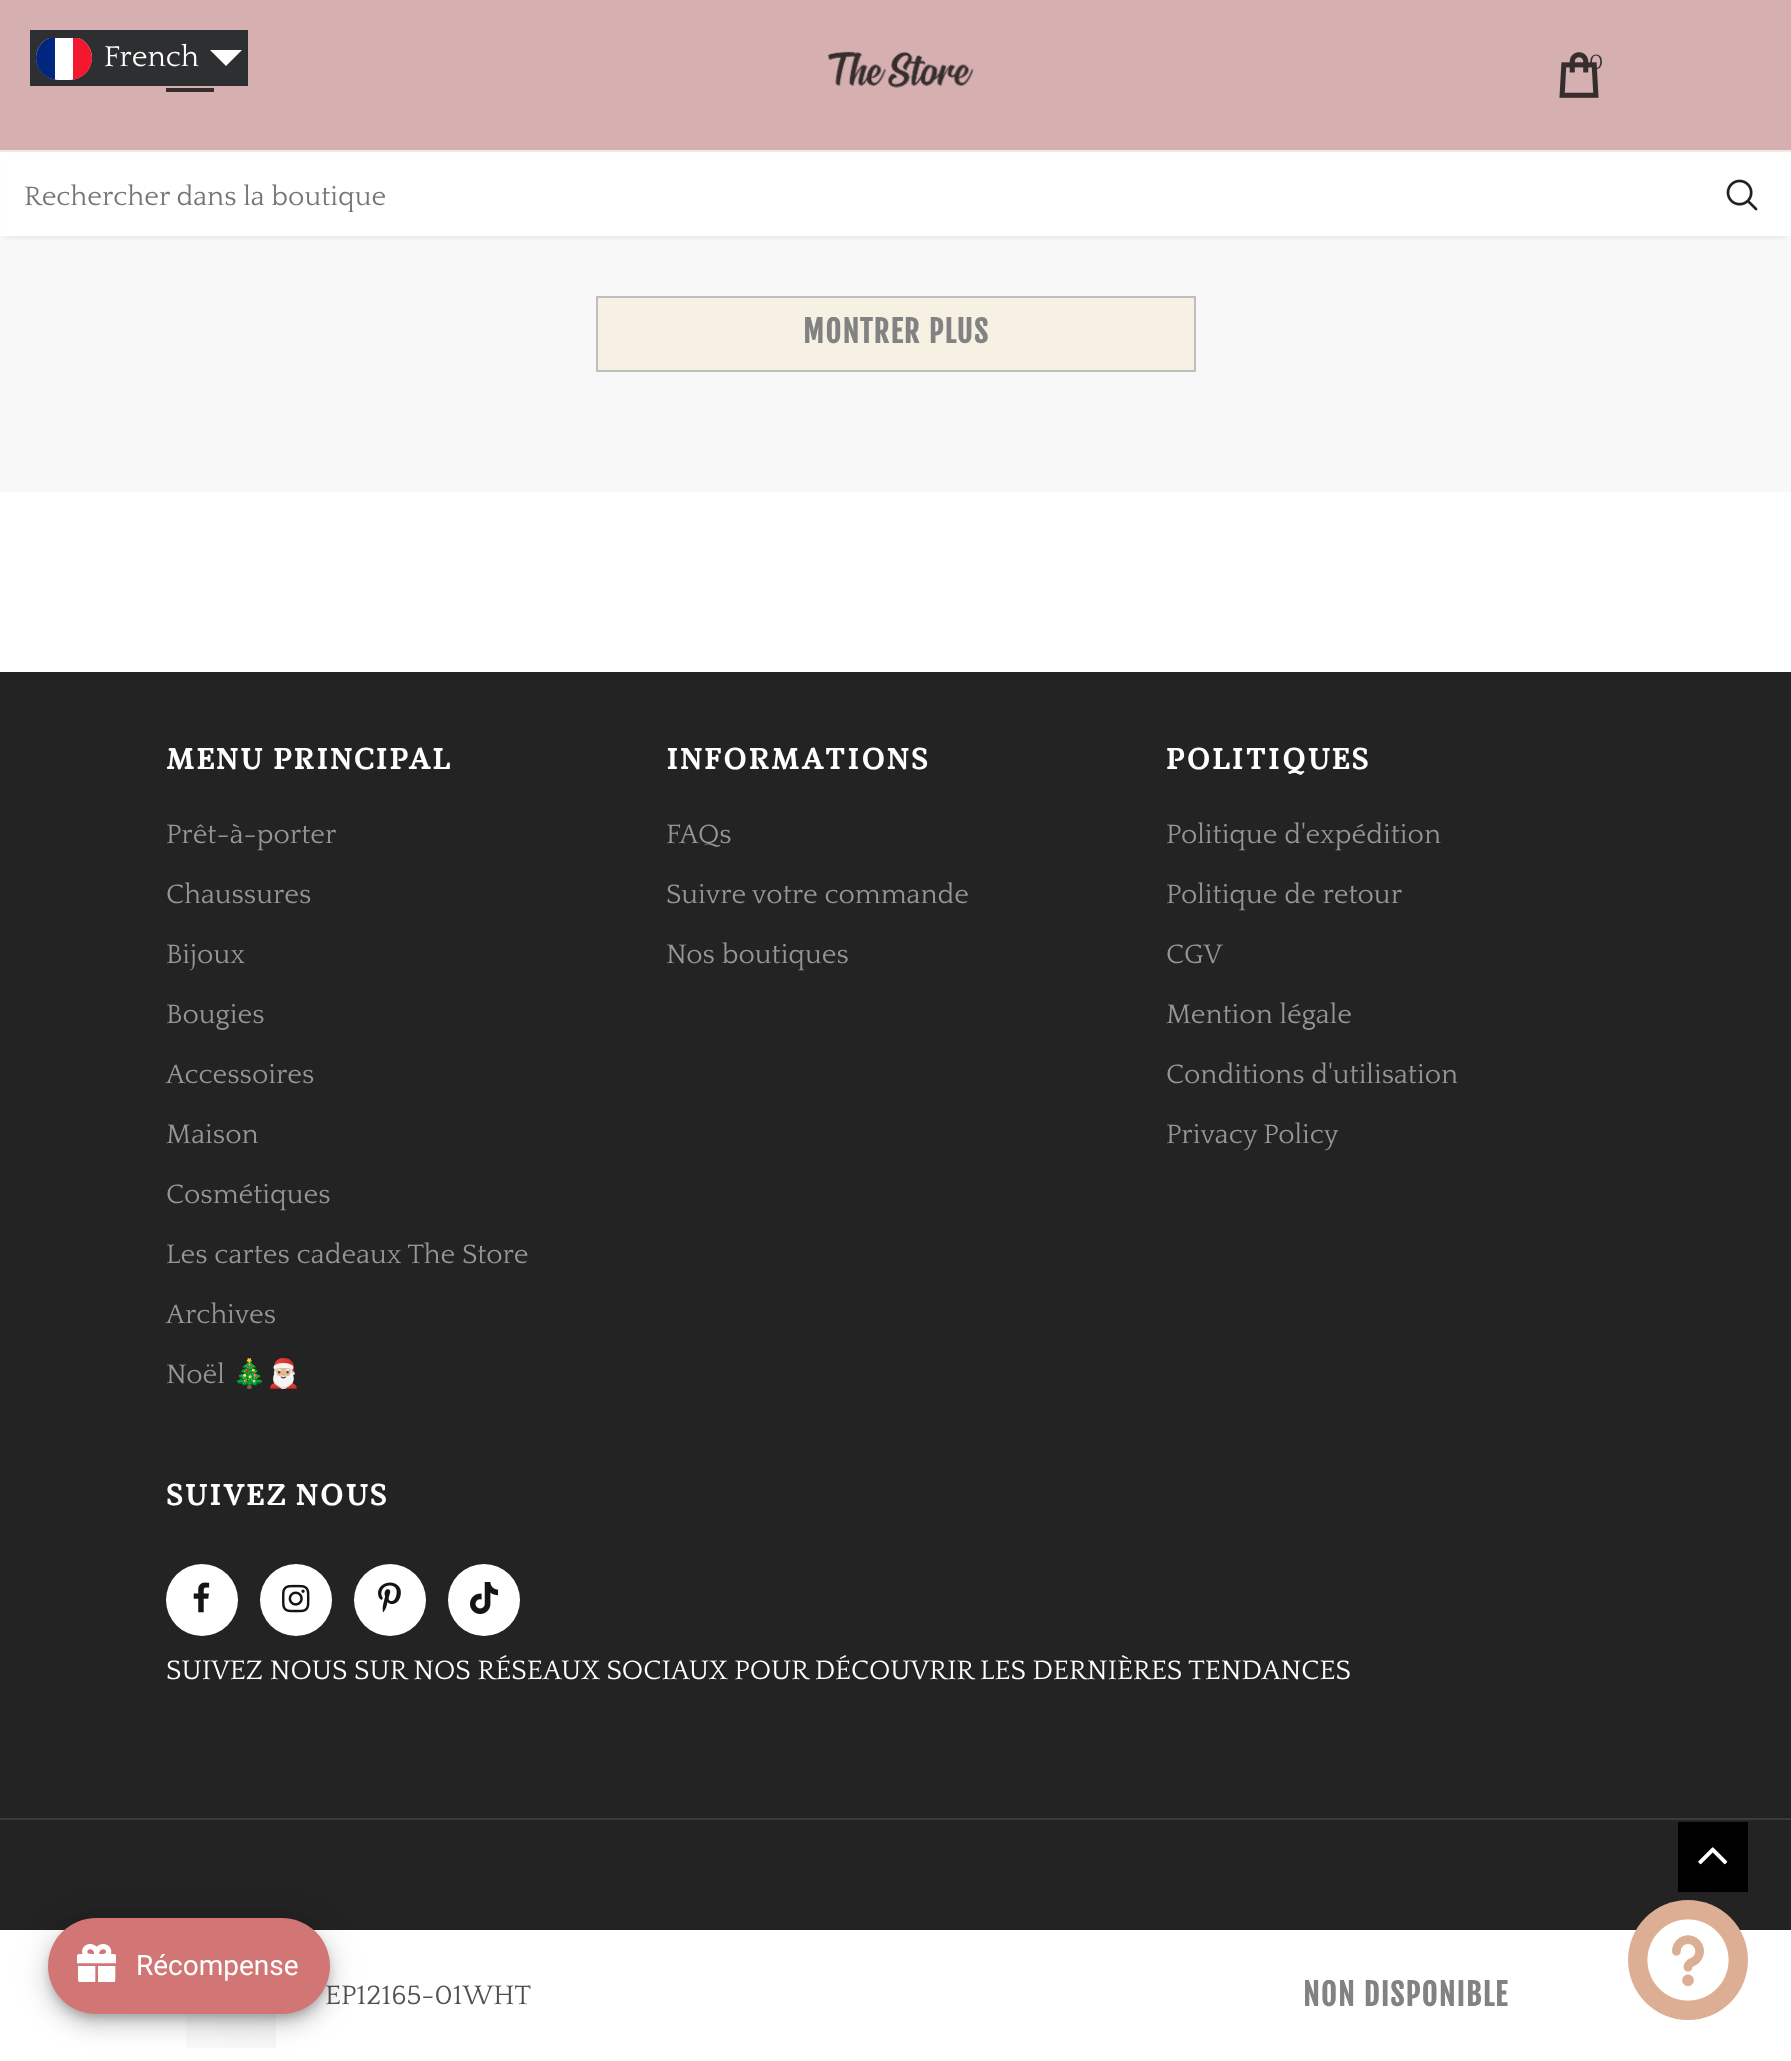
<svg xmlns="http://www.w3.org/2000/svg" width="1791" height="2061">
<defs>
<clipPath id="clip1"><rect x="36" y="36" width="56" height="44" rx="22"/></clipPath>
<clipPath id="clip2"><rect x="24" y="180" width="1636" height="32"/></clipPath>
</defs>
<rect width="100%" height="100%" fill="#fff"/>
<rect width="1791" height="150" fill="#d6b0b0"/>
<rect x="30" y="30" width="218" height="56" fill="#2e2f30"/>
<g clip-path="url(#clip1)">
<path d="M36 38h56v20c0 12-10 22-22 22h-12c-12 0-22-10-22-22z" fill="#fff"/>
<rect x="36" y="38" width="19" height="42" fill="#00267f"/>
<rect x="73" y="38" width="19" height="42" fill="#f31830"/>
</g>
<text x="104" y="66" style="font-family:Quattrocento;font-size:30px;fill:#fff">French</text>
<path d="M210 50h32l-16 16z" fill="#fff"/>
<image x="827" y="51" width="147" height="37" href="media/1.png"/>
<image x="1559" y="52" width="40" height="46" href="media/2.png"/>
<text x="1589" y="69" style="font-family:Quattrocento;font-size:22px;fill:#323232">0</text>
<rect y="236" width="1791" height="256" fill="#f8f8f8"/>
<rect x="6" y="162" width="1780" height="74" fill="#0000001f" filter="blur(3px)"/>
<rect x="2" y="158" width="1788" height="78" fill="#fff"/>
<rect y="150" width="1791" height="2" fill="#eaeaea"/>
<g clip-path="url(#clip2)">
<text x="24" y="205" style="font-family:Quattrocento;font-size:28px;fill:#757575">Rechercher dans la boutique</text>
</g>
<image x="1726" y="179" width="32" height="32" href="media/3.png"/>
<rect x="166" y="88" width="48" height="4" fill="#362d2d"/>
<rect x="597" y="297" width="598" height="74" fill="#f7f1e4" stroke="#bebebe" stroke-width="2"/>
<text x="803" y="343" style="font-family:Fjalla One;font-size:30px;font-weight:bold;letter-spacing:1.5px;fill:#828282">MONTRER PLUS</text>
<rect y="672" width="1791" height="1258" fill="#232323"/>
<text x="166" y="769" style="font-family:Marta;font-size:30px;font-weight:bold;letter-spacing:1.5px;fill:#fff">MENU PRINCIPAL</text>
<text x="166" y="843" style="font-family:Quattrocento;font-size:28px;fill:#969696">Prêt-à-porter</text>
<text x="166" y="903" style="font-family:Quattrocento;font-size:28px;fill:#969696">Chaussures</text>
<text x="166" y="963" style="font-family:Quattrocento;font-size:28px;fill:#969696">Bijoux</text>
<text x="166" y="1023" style="font-family:Quattrocento;font-size:28px;fill:#969696">Bougies</text>
<text x="166" y="1083" style="font-family:Quattrocento;font-size:28px;fill:#969696">Accessoires</text>
<text x="166" y="1143" style="font-family:Quattrocento;font-size:28px;fill:#969696">Maison</text>
<text x="166" y="1203" style="font-family:Quattrocento;font-size:28px;fill:#969696">Cosmétiques</text>
<text x="166" y="1263" style="font-family:Quattrocento;font-size:28px;fill:#969696">Les cartes cadeaux The Store</text>
<text x="166" y="1323" style="font-family:Quattrocento;font-size:28px;fill:#969696">Archives</text>
<text x="166" y="1383" style="font-family:Quattrocento;font-size:28px;fill:#969696">Noël</text>
<text x="232" y="1383" style="font-family:Noto Color Emoji;font-size:28px;fill:#969696">🎄🎅🏼</text>
<text x="666" y="769" style="font-family:Marta;font-size:30px;font-weight:bold;letter-spacing:1.5px;fill:#fff">INFORMATIONS</text>
<text x="666" y="843" style="font-family:Quattrocento;font-size:28px;fill:#969696">FAQs</text>
<text x="666" y="903" style="font-family:Quattrocento;font-size:28px;fill:#969696">Suivre votre commande</text>
<text x="666" y="963" style="font-family:Quattrocento;font-size:28px;fill:#969696">Nos boutiques</text>
<text x="1166" y="769" style="font-family:Marta;font-size:30px;font-weight:bold;letter-spacing:1.5px;fill:#fff">POLITIQUES</text>
<text x="1166" y="843" style="font-family:Quattrocento;font-size:28px;fill:#969696">Politique d'expédition</text>
<text x="1166" y="903" style="font-family:Quattrocento;font-size:28px;fill:#969696">Politique de retour</text>
<text x="1166" y="963" style="font-family:Quattrocento;font-size:28px;fill:#969696">CGV</text>
<text x="1166" y="1023" style="font-family:Quattrocento;font-size:28px;fill:#969696">Mention légale</text>
<text x="1166" y="1083" style="font-family:Quattrocento;font-size:28px;fill:#969696">Conditions d'utilisation</text>
<text x="1166" y="1143" style="font-family:Quattrocento;font-size:28px;fill:#969696">Privacy Policy</text>
<text x="166" y="1505" style="font-family:Marta;font-size:30px;font-weight:bold;letter-spacing:1.5px;fill:#fff">SUIVEZ NOUS</text>
<circle cx="202" cy="1600" r="36" fill="#fff"/>
<image x="193" y="1582" width="17" height="31" href="media/4.png"/>
<circle cx="296" cy="1600" r="36" fill="#fff"/>
<image x="282" y="1584" width="28" height="29" href="media/5.png"/>
<circle cx="390" cy="1600" r="36" fill="#fff"/>
<image x="378" y="1582" width="23" height="31" href="media/6.png"/>
<circle cx="484" cy="1600" r="36" fill="#fff"/>
<image x="469" y="1582" width="30" height="32" href="media/7.png"/>
<text x="166" y="1679" style="font-family:Quattrocento;font-size:28px;fill:#fff">SUIVEZ NOUS SUR NOS RÉSEAUX SOCIAUX POUR DÉCOUVRIR LES DERNIÈRES TENDANCES</text>
<rect y="1818" width="1791" height="2" fill="#3b3b3b"/>
<rect x="1678" y="1822" width="70" height="70" fill="#000"/>
<image x="1698" y="1847" width="30" height="18" href="media/8.png"/>
<text x="325" y="2004" style="font-family:Quattrocento;font-size:28px;fill:#505050">EP12165-01WHT</text>
<image x="186" y="2014" width="90" height="34" href="media/9.png"/>
<text x="1303" y="2006" style="font-family:Fjalla One;font-size:30px;font-weight:bold;letter-spacing:1.5px;fill:#828282">NON DISPONIBLE</text>
<circle cx="1688" cy="1960" r="60" fill="#dcae94"/>
<image x="1647" y="1919" width="82" height="82" href="media/10.png"/>
<rect x="48" y="1920" width="282" height="96" rx="48" fill="#0000001f" filter="blur(18px)"/>
<rect x="48" y="1930" width="282" height="96" rx="48" fill="#00000024" filter="blur(10px)"/>
<rect x="50" y="1926" width="278" height="92" rx="46" fill="#00000033" filter="blur(5px)"/>
<rect x="48" y="1918" width="282" height="96" rx="48" fill="#d17575"/>
<image x="77" y="1944" width="39" height="38" href="media/11.png"/>
<text x="136" y="1975" style="font-family:Roboto;font-size:28px;fill:#fff">Récompense</text>
</svg>
